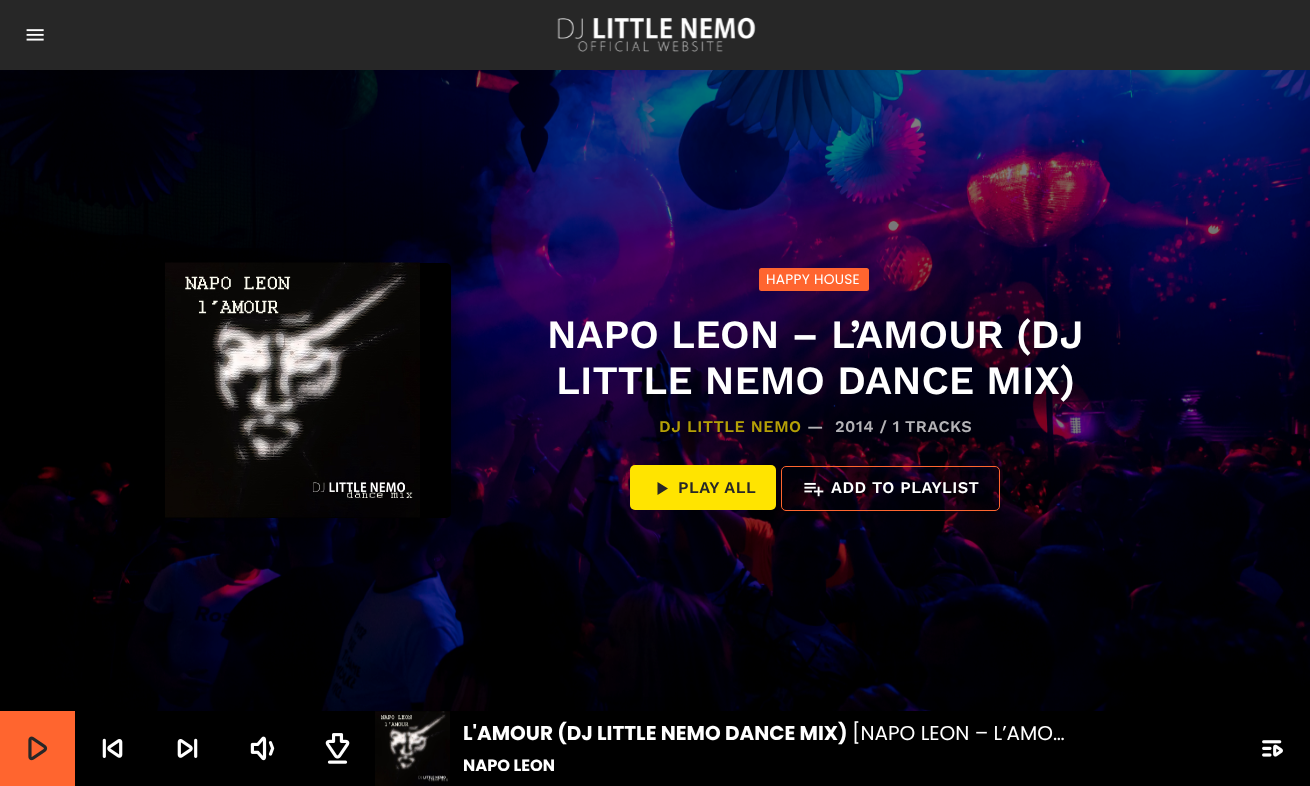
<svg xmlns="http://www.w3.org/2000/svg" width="1310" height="786">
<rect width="100%" height="100%" fill="#fff"/>
<rect width="1310" height="70" fill="#272727"/>
<image x="26" y="29" width="18" height="12" href="media/1.png"/>
<image x="557" y="17" width="199" height="35" href="media/2.png"/>
<image x="0" y="70" width="1310" height="641" href="media/3.png"/>
<rect x="134" y="265" width="317" height="255" rx="5" fill="#0000004d" filter="blur(7.5px)"/>
<rect x="134" y="263" width="317" height="255" rx="5" fill="#000"/>
<image x="165" y="262" width="255" height="256" href="media/4.png"/>
<rect x="759" y="268" width="110" height="23" rx="2.5" fill="#ff652f"/>
<text x="766" y="284" style="font-family:Poppins;font-size:13.75px;letter-spacing:0.25px;fill:#fff">HAPPY HOUSE</text>
<text x="547" y="348" style="font-family:Work Sans;font-size:40px;font-weight:600;fill:#fff">NAPO LEON – L’AMOUR (DJ</text>
<text x="556" y="394" style="font-family:Work Sans;font-size:40px;font-weight:600;fill:#fff">LITTLE NEMO DANCE MIX)</text>
<text x="659" y="432" style="font-family:Work Sans;font-size:16.25px;font-weight:600;letter-spacing:0.5px;fill:#b5a007">DJ LITTLE NEMO</text>
<text x="807" y="432" style="font-family:Work Sans;font-size:16.25px;font-weight:600;letter-spacing:0.5px;fill:#b4b3b7">—</text>
<text x="835" y="432" style="font-family:Work Sans;font-size:16.25px;font-weight:600;letter-spacing:0.5px;fill:#b4b3b7">2014 / 1 TRACKS</text>
<rect x="630" y="465" width="146" height="45" rx="5" fill="#ffe400"/>
<path d="M657.5 482l10.5 6.5l-10.5 6.5z" fill="#272727"/>
<text x="678" y="493" style="font-family:Work Sans;font-size:16.25px;font-weight:600;letter-spacing:0.5px;fill:#272727">PLAY ALL</text>
<rect x="781.5" y="466.5" width="218" height="44" rx="4.5" fill="none" stroke="#ff652f"/>
<image x="804" y="482" width="20" height="15" href="media/5.png"/>
<text x="831" y="493" style="font-family:Work Sans;font-size:16.25px;font-weight:600;letter-spacing:0.5px;fill:#fff">ADD TO PLAYLIST</text>
<rect x="133" y="714" width="686" height="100" rx="5" fill="#0000004d" filter="blur(7.5px)"/>
<rect x="849" y="714" width="329" height="62" rx="5" fill="#0000004d" filter="blur(7.5px)"/>
<rect x="75" y="711" width="1235" height="75" fill="#000"/>
<rect y="711" width="75" height="75" fill="#ff652f"/>
<image x="28" y="736" width="20" height="25" href="media/6.png"/>
<image x="102" y="738" width="21" height="20" href="media/7.png"/>
<image x="177" y="738" width="21" height="20" href="media/8.png"/>
<image x="250" y="736" width="25" height="25" href="media/9.png"/>
<image x="325" y="733" width="25" height="31" href="media/10.png"/>
<image x="375" y="711" width="75" height="75" href="media/11.png"/>
<text x="463" y="740" style="font-family:Poppins;font-size:20px;font-weight:bold;fill:#fff">L'AMOUR (DJ LITTLE NEMO DANCE MIX)</text>
<text x="852" y="740" style="font-family:Poppins;font-size:20px;fill:#fff">[NAPO LEON – L’AMO…</text>
<text x="463" y="771" style="font-family:Poppins;font-size:16.25px;font-weight:bold;fill:#fff">NAPO LEON</text>
<image x="1262" y="740" width="21" height="17" href="media/12.png"/>
</svg>
